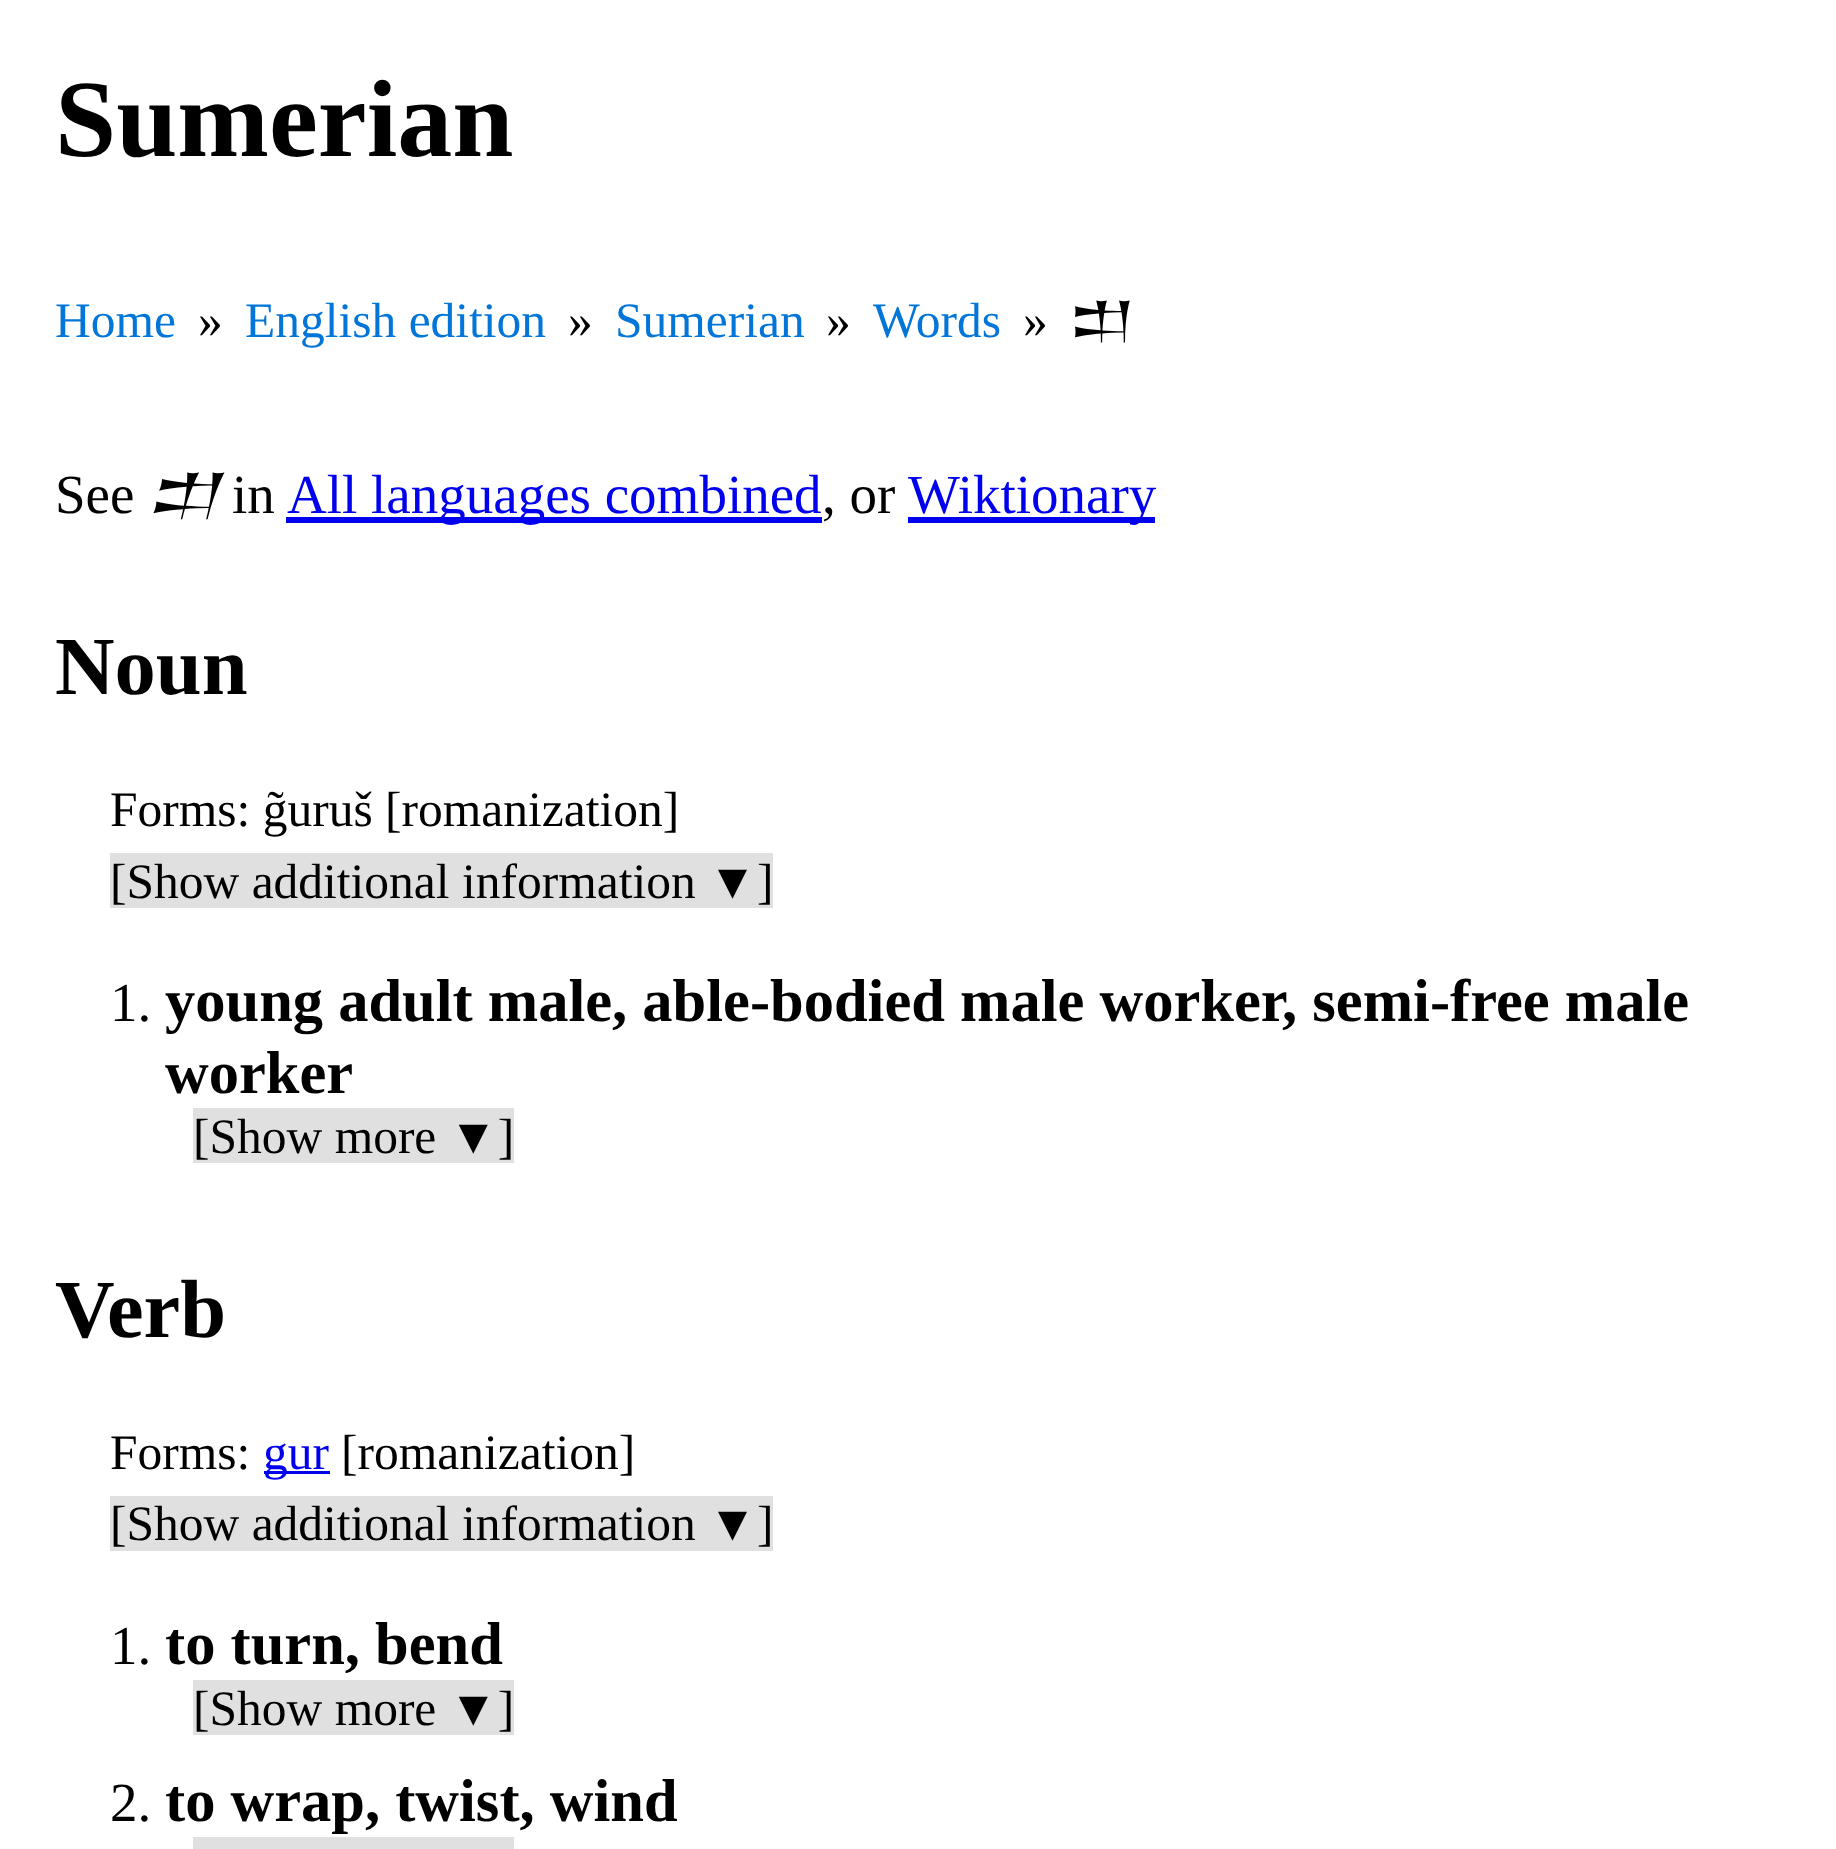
<svg xmlns="http://www.w3.org/2000/svg" width="1836" height="1849">
<rect width="100%" height="100%" fill="#fff"/>
<text x="55" y="156" style="font-family:Liberation Serif;font-size:110px;font-weight:bold;fill:#000">Sumerian</text>
<text x="55" y="337" style="font-family:Liberation Serif;font-size:49.5px;fill:#0275d8">Home</text>
<text x="198" y="337" style="font-family:Liberation Serif;font-size:49.5px;fill:#000">»</text>
<text x="245" y="337" style="font-family:Liberation Serif;font-size:49.5px;fill:#0275d8">English edition</text>
<text x="568" y="337" style="font-family:Liberation Serif;font-size:49.5px;fill:#000">»</text>
<text x="615" y="337" style="font-family:Liberation Serif;font-size:49.5px;fill:#0275d8">Sumerian</text>
<text x="826" y="337" style="font-family:Liberation Serif;font-size:49.5px;fill:#000">»</text>
<text x="873" y="337" style="font-family:Liberation Serif;font-size:49.5px;fill:#0275d8">Words</text>
<text x="1023" y="337" style="font-family:Liberation Serif;font-size:49.5px;fill:#000">»</text>
<text x="1070" y="337" style="font-family:Noto Sans Cuneiform;font-size:49.5px;fill:#000">𒄥</text>
<text x="55" y="513" style="font-family:Liberation Serif;font-size:55px;fill:#000">See</text>
<text x="148" y="513" style="font-family:Noto Sans Cuneiform;font-size:55px;font-style:italic;fill:#000">𒄥</text>
<text x="232" y="513" style="font-family:Liberation Serif;font-size:55px;fill:#000">in</text>
<rect x="286" y="517" width="536" height="6" fill="#00e"/>
<text x="287" y="513" style="font-family:Liberation Serif;font-size:55px;fill:#00e">All languages combined</text>
<text x="822" y="513" style="font-family:Liberation Serif;font-size:55px;fill:#000">, or</text>
<rect x="908" y="517" width="247" height="6" fill="#00e"/>
<text x="908" y="513" style="font-family:Liberation Serif;font-size:55px;fill:#00e">Wiktionary</text>
<text x="55" y="694" style="font-family:Liberation Serif;font-size:82.5px;font-weight:bold;fill:#000">Noun</text>
<text x="110" y="826" style="font-family:Liberation Serif;font-size:49.5px;fill:#000">Forms: g̃uruš [romanization]</text>
<rect x="110" y="853" width="663" height="55" fill="#e0e0e0"/>
<text x="110" y="898" style="font-family:Liberation Serif;font-size:49.5px;fill:#000">[Show additional information ▼]</text>
<text x="110" y="1021" style="font-family:Liberation Serif;font-size:55px;fill:#000">1.</text>
<text x="165" y="1021" style="font-family:Liberation Serif;font-size:60.5px;font-weight:bold;fill:#000">young adult male, able-bodied male worker, semi-free male</text>
<text x="165" y="1093" style="font-family:Liberation Serif;font-size:60.5px;font-weight:bold;fill:#000">worker</text>
<rect x="193" y="1108" width="321" height="55" fill="#e0e0e0"/>
<text x="193" y="1153" style="font-family:Liberation Serif;font-size:49.5px;fill:#000">[Show more ▼]</text>
<text x="55" y="1337" style="font-family:Liberation Serif;font-size:82.5px;font-weight:bold;fill:#000">Verb</text>
<text x="110" y="1469" style="font-family:Liberation Serif;font-size:49.5px;fill:#000">Forms:</text>
<rect x="264" y="1471" width="66" height="3" fill="#00e"/>
<text x="263" y="1469" style="font-family:Liberation Serif;font-size:49.5px;fill:#00e">gur</text>
<text x="341" y="1469" style="font-family:Liberation Serif;font-size:49.5px;fill:#000">[romanization]</text>
<rect x="110" y="1496" width="663" height="55" fill="#e0e0e0"/>
<text x="110" y="1540" style="font-family:Liberation Serif;font-size:49.5px;fill:#000">[Show additional information ▼]</text>
<text x="110" y="1664" style="font-family:Liberation Serif;font-size:55px;fill:#000">1.</text>
<text x="165" y="1664" style="font-family:Liberation Serif;font-size:60.5px;font-weight:bold;fill:#000">to turn, bend</text>
<rect x="193" y="1680" width="321" height="55" fill="#e0e0e0"/>
<text x="193" y="1725" style="font-family:Liberation Serif;font-size:49.5px;fill:#000">[Show more ▼]</text>
<text x="110" y="1821" style="font-family:Liberation Serif;font-size:55px;fill:#000">2.</text>
<text x="165" y="1821" style="font-family:Liberation Serif;font-size:60.5px;font-weight:bold;fill:#000">to wrap, twist, wind</text>
<rect x="193" y="1837" width="321" height="12" fill="#e0e0e0"/>
</svg>
